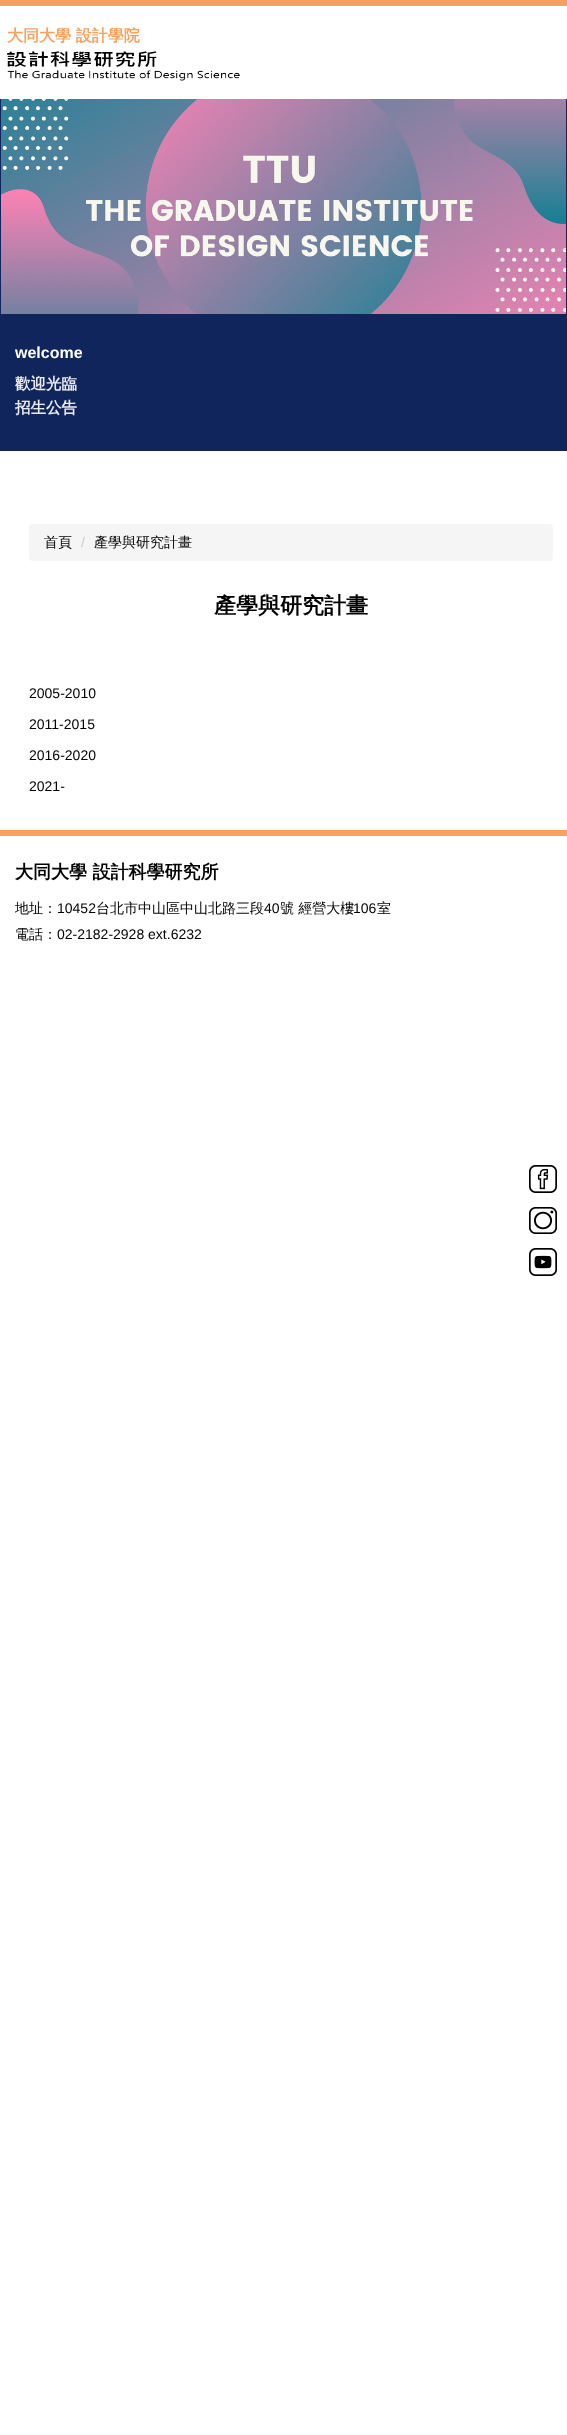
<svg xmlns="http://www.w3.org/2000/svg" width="567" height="2435">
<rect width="100%" height="100%" fill="#fff"/>
<rect width="567" height="6" fill="#f8a15f"/>
<text x="7" y="41" style="font-family:WenQuanYi Zen Hei;font-size:16px;font-weight:bold;fill:#f8a15f">大同大學 設計學院</text>
<image x="7" y="51" width="233" height="30" href="media/1.png"/>
<rect y="99" width="567" height="352" fill="#10255c"/>
<image x="1" y="99" width="565" height="215" href="media/2.png"/>
<text x="15" y="358" style="font-family:Liberation Sans;font-size:16px;font-weight:bold;fill:#fff">welcome</text>
<text x="15" y="389" style="font-family:WenQuanYi Zen Hei;font-size:15.5px;font-weight:bold;fill:#e7e9ef">歡迎光臨</text>
<text x="15" y="413" style="font-family:WenQuanYi Zen Hei;font-size:15.5px;font-weight:bold;fill:#e7e9ef">招生公告</text>
<rect x="29" y="524" width="524" height="37" rx="4" fill="#f5f5f5"/>
<text x="44" y="547" style="font-family:WenQuanYi Zen Hei;font-size:14px;font-weight:500;fill:#000">首頁</text>
<text x="81" y="547" style="font-family:Liberation Sans;font-size:14px;fill:#ccc">/</text>
<text x="94" y="547" style="font-family:WenQuanYi Zen Hei;font-size:14px;font-weight:500;fill:#000">產學與研究計畫</text>
<text x="214" y="613" style="font-family:WenQuanYi Zen Hei;font-size:22px;font-weight:bold;fill:#000">產學與研究計畫</text>
<text x="29" y="698" style="font-family:Liberation Sans;font-size:14px;fill:#000">2005-2010</text>
<text x="29" y="729" style="font-family:Liberation Sans;font-size:14px;fill:#000">2011-2015</text>
<text x="29" y="760" style="font-family:Liberation Sans;font-size:14px;fill:#000">2016-2020</text>
<text x="29" y="791" style="font-family:Liberation Sans;font-size:14px;fill:#000">2021-</text>
<rect y="830" width="567" height="6" fill="#f8a15f"/>
<text x="15" y="878" style="font-family:WenQuanYi Zen Hei;font-size:18px;font-weight:bold;fill:#000">大同大學 設計科學研究所</text>
<text x="15" y="913" style="font-family:WenQuanYi Zen Hei;font-size:14px;font-weight:500;fill:#000">地址：</text>
<text x="57" y="913" style="font-family:Liberation Sans;font-size:14px;fill:#000">10452</text>
<text x="96" y="913" style="font-family:WenQuanYi Zen Hei;font-size:14px;font-weight:500;fill:#000">台北市中山區中山北路三段</text>
<text x="264" y="913" style="font-family:Liberation Sans;font-size:14px;fill:#000">40</text>
<text x="280" y="913" style="font-family:WenQuanYi Zen Hei;font-size:14px;font-weight:500;fill:#000">號 經營大樓</text>
<text x="353" y="913" style="font-family:Liberation Sans;font-size:14px;fill:#000">106</text>
<text x="377" y="913" style="font-family:WenQuanYi Zen Hei;font-size:14px;font-weight:500;fill:#000">室</text>
<text x="15" y="939" style="font-family:WenQuanYi Zen Hei;font-size:14px;font-weight:500;fill:#000">電話：</text>
<text x="57" y="939" style="font-family:Liberation Sans;font-size:14px;fill:#000">02-2182-2928 ext.6232</text>
<image x="529" y="1165" width="28" height="28" href="media/3.png"/>
<image x="529" y="1207" width="28" height="27" href="media/4.png"/>
<image x="529" y="1248" width="28" height="28" href="media/5.png"/>
</svg>
